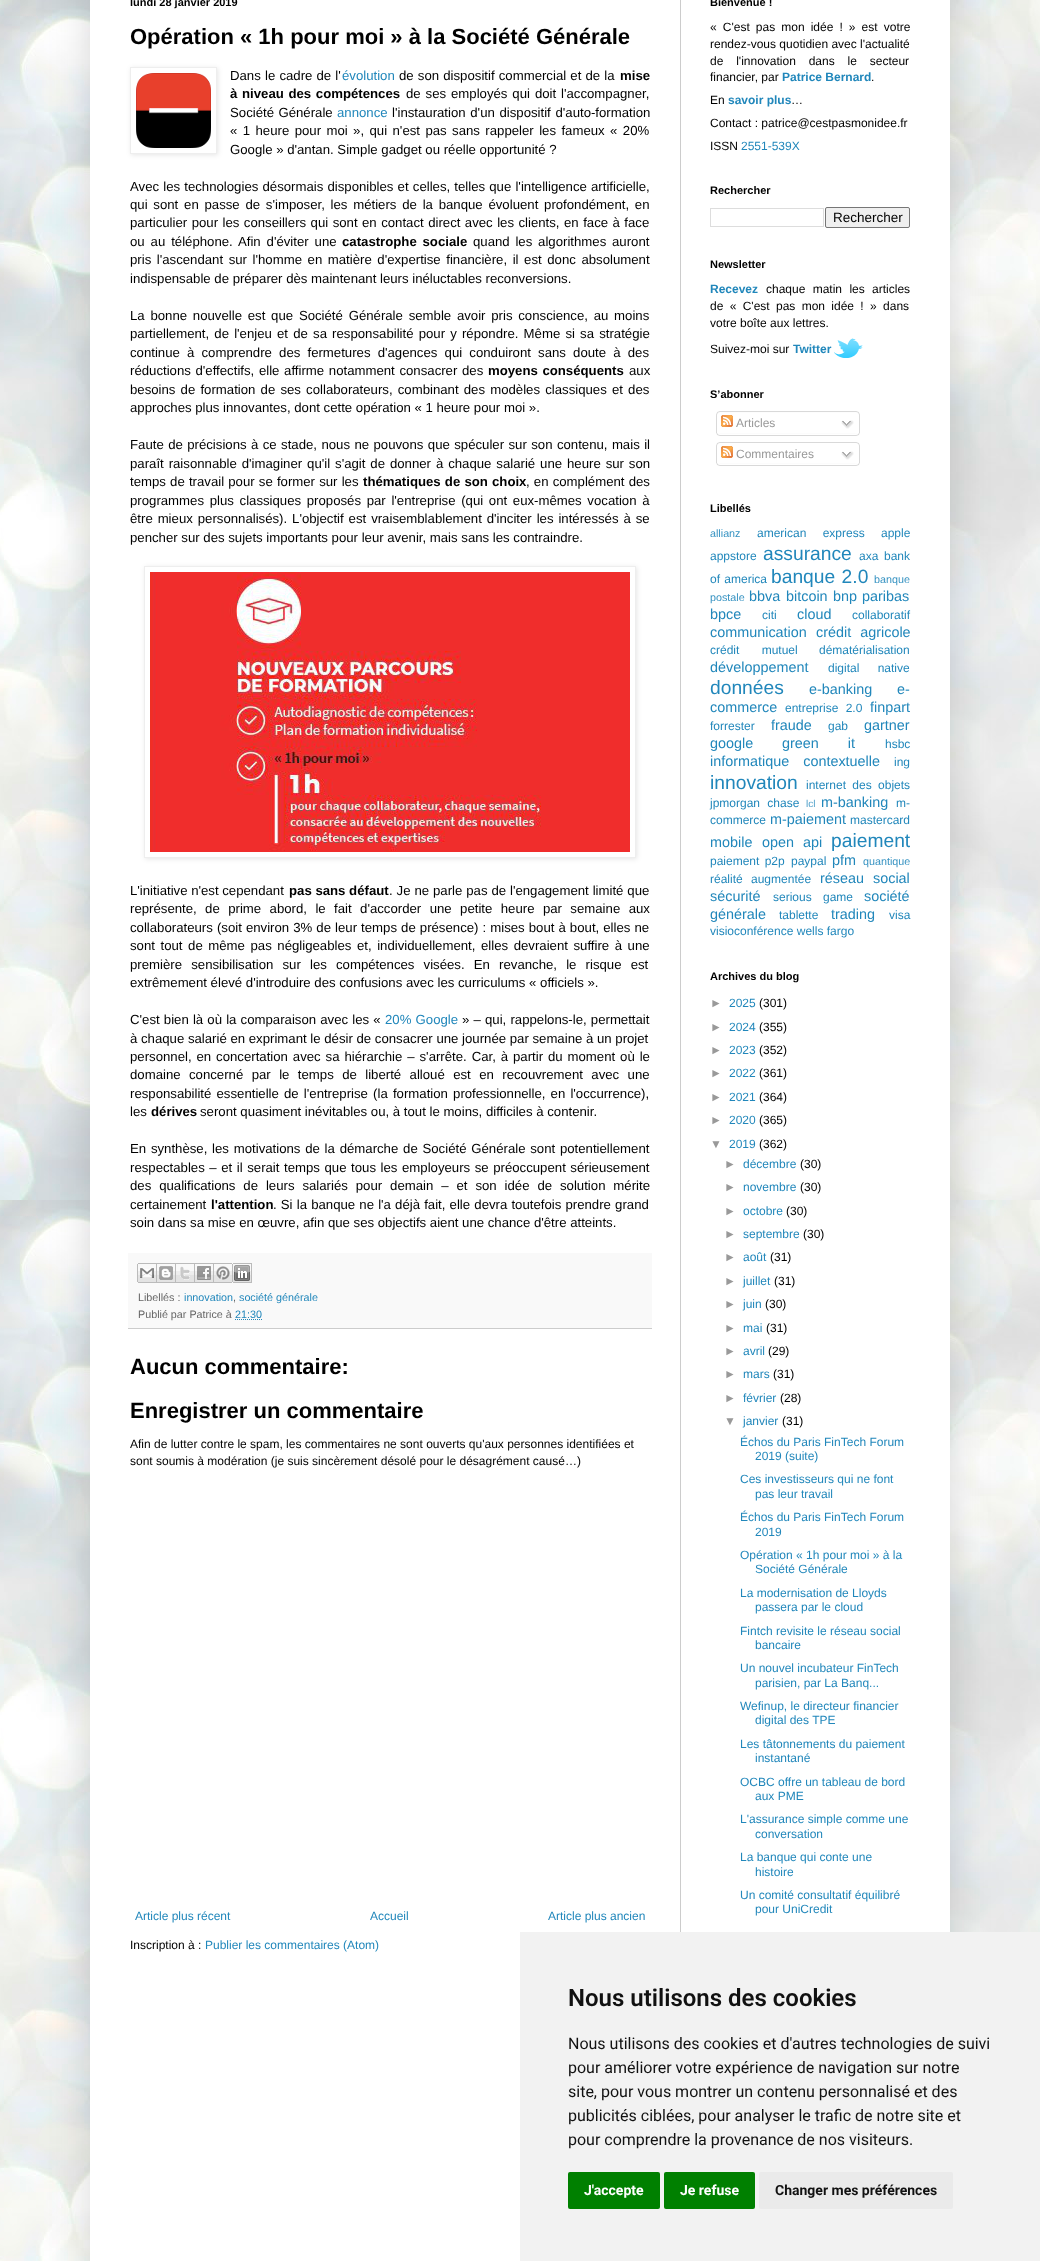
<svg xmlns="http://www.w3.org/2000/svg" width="1040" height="2261">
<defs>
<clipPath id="clip1"><path d="M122 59h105v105h-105zm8 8h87v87h-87z" clip-rule="evenodd"/></clipPath>
<clipPath id="clip2"><path d="M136 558h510v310h-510zm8 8h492v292h-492z" clip-rule="evenodd"/></clipPath>
</defs>
<rect width="100%" height="100%" fill="#fff"/>
<image x="0" y="0" width="1040" height="2261" href="media/1.png"/>
<rect x="90" y="-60" width="860" height="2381" fill="#00000026" filter="blur(20px)"/>
<rect x="90" width="860" height="2261" fill="#fff"/>
<text x="130" y="6" style="font-family:Liberation Sans;font-size:11px;font-weight:bold;fill:#000">lundi 28 janvier 2019</text>
<text x="130" y="44" style="font-family:Liberation Sans;font-size:22px;font-weight:bold;fill:#000">Opération « 1h pour moi » à la Société Générale</text>
<g clip-path="url(#clip1)">
<rect x="131" y="68" width="87" height="87" fill="#0000001a" filter="blur(2.5px)"/>
</g>
<rect x="130.5" y="67.5" width="86" height="86" fill="none" stroke="#eee"/>
<image x="136" y="73" width="75" height="75" href="media/2.png"/>
<text x="230" y="80" word-spacing="0.5" style="font-family:Liberation Sans;font-size:13.2px;fill:#000">Dans le cadre de l'</text>
<text x="342" y="80" style="font-family:Liberation Sans;font-size:13.2px;fill:#2187bb">évolution</text>
<text x="399" y="80" word-spacing="0.5" style="font-family:Liberation Sans;font-size:13.2px;fill:#000">de son dispositif commercial et de la</text>
<text x="620" y="80" style="font-family:Liberation Sans;font-size:13.2px;font-weight:bold;fill:#000">mise</text>
<text x="230" y="98" word-spacing="1" style="font-family:Liberation Sans;font-size:13.2px;font-weight:bold;fill:#000">à niveau des compétences</text>
<text x="406" y="98" word-spacing="1.25" style="font-family:Liberation Sans;font-size:13.2px;fill:#000">de ses employés qui doit l'accompagner,</text>
<text x="230" y="117" word-spacing="0.75" style="font-family:Liberation Sans;font-size:13.2px;fill:#000">Société Générale</text>
<text x="337" y="117" style="font-family:Liberation Sans;font-size:13.2px;fill:#2187bb">annonce</text>
<text x="392" y="117" word-spacing="1" style="font-family:Liberation Sans;font-size:13.2px;fill:#000">l'instauration d'un dispositif d'auto-formation</text>
<text x="230" y="135" word-spacing="1.75" style="font-family:Liberation Sans;font-size:13.2px;fill:#000">« 1 heure pour moi », qui n'est pas sans rappeler les fameux « 20%</text>
<text x="230" y="154" style="font-family:Liberation Sans;font-size:13.2px;fill:#000">Google » d'antan. Simple gadget ou réelle opportunité ?</text>
<text x="130" y="191" word-spacing="0.5" style="font-family:Liberation Sans;font-size:13.2px;fill:#000">Avec les technologies désormais disponibles et celles, telles que l'intelligence artificielle,</text>
<text x="130" y="209" word-spacing="2.1" style="font-family:Liberation Sans;font-size:13.2px;fill:#000">qui sont en passe de s'imposer, les métiers de la banque évoluent profondément, en</text>
<text x="130" y="227" word-spacing="0.8" style="font-family:Liberation Sans;font-size:13.2px;fill:#000">particulier pour les conseillers qui sont en contact direct avec les clients, en face à face</text>
<text x="130" y="246" word-spacing="2.25" style="font-family:Liberation Sans;font-size:13.2px;fill:#000">ou au téléphone. Afin d'éviter une</text>
<text x="342" y="246" word-spacing="2.1" style="font-family:Liberation Sans;font-size:13.2px;font-weight:bold;fill:#000">catastrophe sociale</text>
<text x="473" y="246" word-spacing="2.1" style="font-family:Liberation Sans;font-size:13.2px;fill:#000">quand les algorithmes auront</text>
<text x="130" y="264" word-spacing="1.9" style="font-family:Liberation Sans;font-size:13.2px;fill:#000">pris l'ascendant sur l'homme en matière d'expertise financière, il est donc absolument</text>
<text x="130" y="283" style="font-family:Liberation Sans;font-size:13.2px;fill:#000">indispensable de préparer dès maintenant leurs inéluctables reconversions.</text>
<text x="130" y="320" word-spacing="2.1" style="font-family:Liberation Sans;font-size:13.2px;fill:#000">La bonne nouvelle est que Société Générale semble avoir pris conscience, au moins</text>
<text x="130" y="338" word-spacing="1.5" style="font-family:Liberation Sans;font-size:13.2px;fill:#000">partiellement, de l'enjeu et de sa responsabilité pour y répondre. Même si sa stratégie</text>
<text x="130" y="357" word-spacing="3.5" style="font-family:Liberation Sans;font-size:13.2px;fill:#000">continue à comprendre des fermetures d'agences qui conduiront sans doute à des</text>
<text x="130" y="375" word-spacing="1" style="font-family:Liberation Sans;font-size:13.2px;fill:#000">réductions d'effectifs, elle affirme notamment consacrer des</text>
<text x="488" y="375" word-spacing="0.9" style="font-family:Liberation Sans;font-size:13.2px;font-weight:bold;fill:#000">moyens conséquents</text>
<text x="629" y="375" style="font-family:Liberation Sans;font-size:13.2px;fill:#000">aux</text>
<text x="130" y="394" word-spacing="1.5" style="font-family:Liberation Sans;font-size:13.2px;fill:#000">besoins de formation de ses collaborateurs, combinant des modèles classiques et des</text>
<text x="130" y="412" style="font-family:Liberation Sans;font-size:13.2px;fill:#000">approches plus innovantes, dont cette opération « 1 heure pour moi ».</text>
<text x="130" y="449" word-spacing="0.75" style="font-family:Liberation Sans;font-size:13.2px;fill:#000">Faute de précisions à ce stade, nous ne pouvons que spéculer sur son contenu, mais il</text>
<text x="130" y="468" word-spacing="1.25" style="font-family:Liberation Sans;font-size:13.2px;fill:#000">paraît raisonnable d'imaginer qu'il s'agit de donner à chaque salarié une heure sur son</text>
<text x="130" y="486" word-spacing="0.5" style="font-family:Liberation Sans;font-size:13.2px;fill:#000">temps de travail pour se former sur les</text>
<text x="363" y="486" word-spacing="0.5" style="font-family:Liberation Sans;font-size:13.2px;font-weight:bold;fill:#000">thématiques de son choix</text>
<text x="526" y="486" word-spacing="0.5" style="font-family:Liberation Sans;font-size:13.2px;fill:#000">, en complément des</text>
<text x="130" y="505" word-spacing="2" style="font-family:Liberation Sans;font-size:13.2px;fill:#000">programmes plus classiques proposés par l'entreprise (qui ont eux-mêmes vocation à</text>
<text x="130" y="523" word-spacing="1.25" style="font-family:Liberation Sans;font-size:13.2px;fill:#000">être mieux personnalisés). L'objectif est vraisemblablement d'inciter les intéressés à se</text>
<text x="130" y="542" style="font-family:Liberation Sans;font-size:13.2px;fill:#000">pencher sur des sujets importants pour leur avenir, mais sans les contraindre.</text>
<g clip-path="url(#clip2)">
<rect x="145" y="567" width="492" height="292" fill="#0000001a" filter="blur(2.5px)"/>
</g>
<rect x="144.5" y="566.5" width="491" height="291" fill="none" stroke="#eee"/>
<image x="150" y="572" width="480" height="280" href="media/3.png"/>
<text x="130" y="895" style="font-family:Liberation Sans;font-size:13.2px;fill:#000">L'initiative n'est cependant</text>
<text x="289" y="895" style="font-family:Liberation Sans;font-size:13.2px;font-weight:bold;fill:#000">pas sans défaut</text>
<text x="389" y="895" word-spacing="0.25" style="font-family:Liberation Sans;font-size:13.2px;fill:#000">. Je ne parle pas de l'engagement limité que</text>
<text x="130" y="913" word-spacing="4.75" style="font-family:Liberation Sans;font-size:13.2px;fill:#000">représente, de prime abord, le fait d'accorder une petite heure par semaine aux</text>
<text x="130" y="932" word-spacing="0.4" style="font-family:Liberation Sans;font-size:13.2px;fill:#000">collaborateurs (soit environ 3% de leur temps de présence) : mises bout à bout, elles ne</text>
<text x="130" y="950" word-spacing="1.9" style="font-family:Liberation Sans;font-size:13.2px;fill:#000">sont tout de même pas négligeables et, individuellement, elles devraient suffire à une</text>
<text x="130" y="969" word-spacing="5.5" style="font-family:Liberation Sans;font-size:13.2px;fill:#000">première sensibilisation sur les compétences visées. En revanche, le risque est</text>
<text x="130" y="987" style="font-family:Liberation Sans;font-size:13.2px;fill:#000">extrêmement élevé d'introduire des confusions avec les curriculums « officiels ».</text>
<text x="130" y="1024" word-spacing="0.5" style="font-family:Liberation Sans;font-size:13.2px;fill:#000">C'est bien là où la comparaison avec les «</text>
<text x="385" y="1024" word-spacing="0.5" style="font-family:Liberation Sans;font-size:13.2px;fill:#2187bb">20% Google</text>
<text x="462" y="1024" word-spacing="0.5" style="font-family:Liberation Sans;font-size:13.2px;fill:#000">» – qui, rappelons-le, permettait</text>
<text x="130" y="1043" style="font-family:Liberation Sans;font-size:13.2px;fill:#000">à chaque salarié en exprimant le désir de consacrer une journée par semaine à un projet</text>
<text x="130" y="1061" word-spacing="1.25" style="font-family:Liberation Sans;font-size:13.2px;fill:#000">personnel, en concertation avec sa hiérarchie – s'arrête. Car, à partir du moment où le</text>
<text x="130" y="1079" word-spacing="4.75" style="font-family:Liberation Sans;font-size:13.2px;fill:#000">domaine concerné par le temps de liberté alloué est en recouvrement avec une</text>
<text x="130" y="1098" word-spacing="1.5" style="font-family:Liberation Sans;font-size:13.2px;fill:#000">responsabilité essentielle de l'entreprise (la formation professionnelle, en l'occurrence),</text>
<text x="130" y="1116" style="font-family:Liberation Sans;font-size:13.2px;fill:#000">les</text>
<text x="151" y="1116" style="font-family:Liberation Sans;font-size:13.2px;font-weight:bold;fill:#000">dérives</text>
<text x="200" y="1116" style="font-family:Liberation Sans;font-size:13.2px;fill:#000">seront quasiment inévitables ou, à tout le moins, difficiles à contenir.</text>
<text x="130" y="1153" word-spacing="1.1" style="font-family:Liberation Sans;font-size:13.2px;fill:#000">En synthèse, les motivations de la démarche de Société Générale sont potentiellement</text>
<text x="130" y="1172" word-spacing="0.9" style="font-family:Liberation Sans;font-size:13.2px;fill:#000">respectables – et il serait temps que tous les employeurs se préoccupent sérieusement</text>
<text x="130" y="1190" word-spacing="4.25" style="font-family:Liberation Sans;font-size:13.2px;fill:#000">des qualifications de leurs salariés pour demain – et son idée de solution mérite</text>
<text x="130" y="1209" style="font-family:Liberation Sans;font-size:13.2px;fill:#000">certainement</text>
<text x="211" y="1209" style="font-family:Liberation Sans;font-size:13.2px;font-weight:bold;fill:#000">l'attention</text>
<text x="273" y="1209" word-spacing="0.5" style="font-family:Liberation Sans;font-size:13.2px;fill:#000">. Si la banque ne l'a déjà fait, elle devra toutefois prendre grand</text>
<text x="130" y="1227" style="font-family:Liberation Sans;font-size:13.2px;fill:#000">soin dans sa mise en œuvre, afin que ses objectifs aient une chance d'être atteints.</text>
<rect x="128" y="1253" width="524" height="75" fill="#f9f9f9"/>
<rect x="128" y="1328" width="524" height="1" fill="#ccc"/>
<image x="137" y="1263" width="20" height="20" href="media/4.png"/>
<image x="157" y="1263" width="19" height="20" href="media/5.png"/>
<image x="176" y="1263" width="19" height="20" href="media/6.png"/>
<image x="195" y="1263" width="19" height="20" href="media/7.png"/>
<image x="214" y="1263" width="19" height="20" href="media/8.png"/>
<image x="233" y="1263" width="19" height="20" href="media/9.png"/>
<text x="138" y="1301" style="font-family:Liberation Sans;font-size:10.75px;fill:#666">Libellés :</text>
<text x="184" y="1301" style="font-family:Liberation Sans;font-size:10.75px;fill:#2187bb">innovation</text>
<text x="233" y="1301" style="font-family:Liberation Sans;font-size:10.75px;fill:#666">,</text>
<text x="239" y="1301" style="font-family:Liberation Sans;font-size:10.75px;fill:#2187bb">société générale</text>
<text x="138" y="1318" style="font-family:Liberation Sans;font-size:10.75px;fill:#666">Publié par Patrice à</text>
<text x="235" y="1318" style="font-family:Liberation Sans;font-size:10.75px;fill:#2187bb">21:30</text>
<path d="M235 1319.5h27.5" fill="none" stroke="#2187bb" stroke-dasharray="1 1"/>
<text x="130" y="1374" style="font-family:Liberation Sans;font-size:22px;font-weight:bold;fill:#000">Aucun commentaire:</text>
<text x="130" y="1418" style="font-family:Liberation Sans;font-size:22px;font-weight:bold;fill:#000">Enregistrer un commentaire</text>
<text x="130" y="1448" style="font-family:Liberation Sans;font-size:12px;fill:#000">Afin de lutter contre le spam, les commentaires ne sont ouverts qu'aux personnes identifiées et</text>
<text x="130" y="1465" style="font-family:Liberation Sans;font-size:12px;fill:#000">sont soumis à modération (je suis sincèrement désolé pour le désagrément causé…)</text>
<text x="135" y="1920" style="font-family:Liberation Sans;font-size:12px;fill:#2187bb">Article plus récent</text>
<text x="370" y="1920" style="font-family:Liberation Sans;font-size:12px;fill:#2187bb">Accueil</text>
<text x="548" y="1920" style="font-family:Liberation Sans;font-size:12px;fill:#2187bb">Article plus ancien</text>
<text x="130" y="1949" style="font-family:Liberation Sans;font-size:12px;fill:#000">Inscription à :</text>
<text x="205" y="1949" style="font-family:Liberation Sans;font-size:12px;fill:#2187bb">Publier les commentaires (Atom)</text>
<text x="710" y="6" style="font-family:Liberation Sans;font-size:11px;font-weight:bold;fill:#000">Bienvenue !</text>
<text x="710" y="31" word-spacing="2.75" style="font-family:Liberation Sans;font-size:12px;fill:#000">« C'est pas mon idée ! » est votre</text>
<text x="710" y="48" style="font-family:Liberation Sans;font-size:12px;fill:#000">rendez-vous quotidien avec l'actualité</text>
<text x="710" y="65" word-spacing="9.5" style="font-family:Liberation Sans;font-size:12px;fill:#000">de l'innovation dans le secteur</text>
<text x="710" y="81" style="font-family:Liberation Sans;font-size:12px;fill:#000">financier, par</text>
<text x="782" y="81" style="font-family:Liberation Sans;font-size:12px;font-weight:bold;fill:#2187bb">Patrice Bernard</text>
<text x="871" y="81" style="font-family:Liberation Sans;font-size:12px;fill:#000">.</text>
<text x="710" y="104" style="font-family:Liberation Sans;font-size:12px;fill:#000">En</text>
<text x="728" y="104" style="font-family:Liberation Sans;font-size:12px;font-weight:bold;fill:#2187bb">savoir plus</text>
<text x="791" y="104" style="font-family:Liberation Sans;font-size:12px;fill:#000">…</text>
<text x="710" y="127" style="font-family:Liberation Sans;font-size:12px;fill:#000">Contact : patrice@cestpasmonidee.fr</text>
<text x="710" y="150" style="font-family:Liberation Sans;font-size:12px;fill:#000">ISSN</text>
<text x="741" y="150" style="font-family:Liberation Sans;font-size:12px;fill:#2187bb">2551-539X</text>
<text x="710" y="194" style="font-family:Liberation Sans;font-size:11px;font-weight:bold;fill:#000">Rechercher</text>
<rect x="710.5" y="208.5" width="113" height="18" fill="none" stroke="#ddd"/>
<rect x="825.5" y="207.5" width="84" height="20" rx="1.5" fill="#efefef" stroke="#767676"/>
<text x="833" y="222" style="font-family:Liberation Sans;font-size:13.5px;fill:#000">Rechercher</text>
<text x="710" y="268" style="font-family:Liberation Sans;font-size:11px;font-weight:bold;fill:#000">Newsletter</text>
<text x="710" y="293" style="font-family:Liberation Sans;font-size:12px;font-weight:bold;fill:#2187bb">Recevez</text>
<text x="766" y="293" word-spacing="4" style="font-family:Liberation Sans;font-size:12px;fill:#000">chaque matin les articles</text>
<text x="710" y="310" word-spacing="3" style="font-family:Liberation Sans;font-size:12px;fill:#000">de « C'est pas mon idée ! » dans</text>
<text x="710" y="327" style="font-family:Liberation Sans;font-size:12px;fill:#000">votre boîte aux lettres.</text>
<text x="710" y="353" style="font-family:Liberation Sans;font-size:12px;fill:#000">Suivez-moi sur</text>
<text x="793" y="353" style="font-family:Liberation Sans;font-size:12px;font-weight:bold;fill:#2187bb">Twitter</text>
<image x="834" y="338" width="29" height="20" href="media/10.png"/>
<text x="710" y="398" style="font-family:Liberation Sans;font-size:11px;font-weight:bold;fill:#000">S’abonner</text>
<image x="716" y="411" width="144" height="22" href="media/11.png"/>
<image x="721" y="415" width="12" height="12" href="media/12.png"/>
<text x="736" y="427" style="font-family:Liberation Sans;font-size:12px;fill:#999">Articles</text>
<image x="841" y="420" width="13" height="9" href="media/13.png"/>
<image x="716" y="433" width="144" height="3" href="media/14.png"/>
<image x="716" y="442" width="144" height="21" href="media/15.png"/>
<image x="721" y="446" width="12" height="12" href="media/12.png"/>
<text x="736" y="458" style="font-family:Liberation Sans;font-size:12px;fill:#999">Commentaires</text>
<image x="841" y="451" width="13" height="9" href="media/13.png"/>
<image x="716" y="463" width="144" height="3" href="media/14.png"/>
<text x="710" y="512" style="font-family:Liberation Sans;font-size:11px;font-weight:bold;fill:#000">Libellés</text>
<text x="710" y="537" style="font-family:Liberation Sans;font-size:10.75px;fill:#3793c2">allianz</text>
<text x="757" y="537" word-spacing="13" style="font-family:Liberation Sans;font-size:12px;fill:#2187bb">american express</text>
<text x="881" y="537" style="font-family:Liberation Sans;font-size:12px;fill:#2187bb">apple</text>
<text x="710" y="560" style="font-family:Liberation Sans;font-size:12px;fill:#2187bb">appstore</text>
<text x="763" y="560" style="font-family:Liberation Sans;font-size:19.25px;fill:#2187bb">assurance</text>
<text x="859" y="560" style="font-family:Liberation Sans;font-size:12px;fill:#2187bb">axa</text>
<text x="884" y="560" style="font-family:Liberation Sans;font-size:12px;fill:#2187bb">bank</text>
<text x="710" y="583" word-spacing="1" style="font-family:Liberation Sans;font-size:12px;fill:#2187bb">of america</text>
<text x="771" y="583" word-spacing="1" style="font-family:Liberation Sans;font-size:19.25px;fill:#2187bb">banque 2.0</text>
<text x="874" y="583" style="font-family:Liberation Sans;font-size:10.75px;fill:#3793c2">banque</text>
<text x="710" y="601" style="font-family:Liberation Sans;font-size:10.75px;fill:#3793c2">postale</text>
<text x="749" y="601" style="font-family:Liberation Sans;font-size:14.4px;fill:#2187bb">bbva</text>
<text x="786" y="601" style="font-family:Liberation Sans;font-size:14.4px;fill:#2187bb">bitcoin</text>
<text x="833" y="601" word-spacing="1" style="font-family:Liberation Sans;font-size:14.4px;fill:#2187bb">bnp paribas</text>
<text x="710" y="619" style="font-family:Liberation Sans;font-size:14.4px;fill:#2187bb">bpce</text>
<text x="762" y="619" style="font-family:Liberation Sans;font-size:12px;fill:#2187bb">citi</text>
<text x="797" y="619" style="font-family:Liberation Sans;font-size:14.4px;fill:#2187bb">cloud</text>
<text x="852" y="619" style="font-family:Liberation Sans;font-size:12px;fill:#2187bb">collaboratif</text>
<text x="710" y="637" style="font-family:Liberation Sans;font-size:14.4px;fill:#2187bb">communication</text>
<text x="816" y="637" word-spacing="5" style="font-family:Liberation Sans;font-size:14.4px;fill:#2187bb">crédit agricole</text>
<text x="710" y="654" word-spacing="19" style="font-family:Liberation Sans;font-size:12px;fill:#2187bb">crédit mutuel</text>
<text x="819" y="654" style="font-family:Liberation Sans;font-size:12px;fill:#2187bb">dématérialisation</text>
<text x="710" y="672" style="font-family:Liberation Sans;font-size:14.4px;fill:#2187bb">développement</text>
<text x="828" y="672" word-spacing="15" style="font-family:Liberation Sans;font-size:12px;fill:#2187bb">digital native</text>
<text x="710" y="694" style="font-family:Liberation Sans;font-size:19.25px;fill:#2187bb">données</text>
<text x="809" y="694" style="font-family:Liberation Sans;font-size:14.4px;fill:#2187bb">e-banking</text>
<text x="897" y="694" style="font-family:Liberation Sans;font-size:14.4px;fill:#2187bb">e-</text>
<text x="710" y="712" style="font-family:Liberation Sans;font-size:14.4px;fill:#2187bb">commerce</text>
<text x="785" y="712" word-spacing="4" style="font-family:Liberation Sans;font-size:12px;fill:#2187bb">entreprise 2.0</text>
<text x="870" y="712" style="font-family:Liberation Sans;font-size:14.4px;fill:#2187bb">finpart</text>
<text x="710" y="730" style="font-family:Liberation Sans;font-size:12px;fill:#2187bb">forrester</text>
<text x="771" y="730" style="font-family:Liberation Sans;font-size:14.4px;fill:#2187bb">fraude</text>
<text x="828" y="730" style="font-family:Liberation Sans;font-size:12px;fill:#2187bb">gab</text>
<text x="864" y="730" style="font-family:Liberation Sans;font-size:14.4px;fill:#2187bb">gartner</text>
<text x="710" y="748" style="font-family:Liberation Sans;font-size:14.4px;fill:#2187bb">google</text>
<text x="782" y="748" word-spacing="25" style="font-family:Liberation Sans;font-size:14.4px;fill:#2187bb">green it</text>
<text x="885" y="748" style="font-family:Liberation Sans;font-size:12px;fill:#2187bb">hsbc</text>
<text x="710" y="766" word-spacing="10" style="font-family:Liberation Sans;font-size:14.4px;fill:#2187bb">informatique contextuelle</text>
<text x="894" y="766" style="font-family:Liberation Sans;font-size:12px;fill:#2187bb">ing</text>
<text x="710" y="789" style="font-family:Liberation Sans;font-size:19.25px;fill:#2187bb">innovation</text>
<text x="806" y="789" word-spacing="3" style="font-family:Liberation Sans;font-size:12px;fill:#2187bb">internet des objets</text>
<text x="710" y="807" word-spacing="4" style="font-family:Liberation Sans;font-size:12px;fill:#2187bb">jpmorgan chase</text>
<text x="806" y="807" style="font-family:Liberation Sans;font-size:10px;fill:#4d9fc9">lcl</text>
<text x="821" y="807" style="font-family:Liberation Sans;font-size:14.4px;fill:#2187bb">m-banking</text>
<text x="896" y="807" style="font-family:Liberation Sans;font-size:12px;fill:#2187bb">m-</text>
<text x="710" y="824" style="font-family:Liberation Sans;font-size:12px;fill:#2187bb">commerce</text>
<text x="770" y="824" style="font-family:Liberation Sans;font-size:14.4px;fill:#2187bb">m-paiement</text>
<text x="850" y="824" style="font-family:Liberation Sans;font-size:12px;fill:#2187bb">mastercard</text>
<text x="710" y="847" style="font-family:Liberation Sans;font-size:14.4px;fill:#2187bb">mobile</text>
<text x="762" y="847" word-spacing="5" style="font-family:Liberation Sans;font-size:14.4px;fill:#2187bb">open api</text>
<text x="831" y="847" style="font-family:Liberation Sans;font-size:19.25px;fill:#2187bb">paiement</text>
<text x="710" y="865" word-spacing="2" style="font-family:Liberation Sans;font-size:12px;fill:#2187bb">paiement p2p</text>
<text x="791" y="865" style="font-family:Liberation Sans;font-size:12px;fill:#2187bb">paypal</text>
<text x="832" y="865" style="font-family:Liberation Sans;font-size:14.4px;fill:#2187bb">pfm</text>
<text x="863" y="865" style="font-family:Liberation Sans;font-size:10.75px;fill:#3793c2">quantique</text>
<text x="710" y="883" word-spacing="5" style="font-family:Liberation Sans;font-size:12px;fill:#2187bb">réalité augmentée</text>
<text x="820" y="883" word-spacing="5" style="font-family:Liberation Sans;font-size:14.4px;fill:#2187bb">réseau social</text>
<text x="710" y="901" style="font-family:Liberation Sans;font-size:14.4px;fill:#2187bb">sécurité</text>
<text x="773" y="901" word-spacing="8" style="font-family:Liberation Sans;font-size:12px;fill:#2187bb">serious game</text>
<text x="864" y="901" style="font-family:Liberation Sans;font-size:14.4px;fill:#2187bb">société</text>
<text x="710" y="919" style="font-family:Liberation Sans;font-size:14.4px;fill:#2187bb">générale</text>
<text x="779" y="919" style="font-family:Liberation Sans;font-size:12px;fill:#2187bb">tablette</text>
<text x="831" y="919" style="font-family:Liberation Sans;font-size:14.4px;fill:#2187bb">trading</text>
<text x="889" y="919" style="font-family:Liberation Sans;font-size:12px;fill:#2187bb">visa</text>
<text x="710" y="935" style="font-family:Liberation Sans;font-size:12px;fill:#2187bb">visioconférence wells fargo</text>
<text x="710" y="980" style="font-family:Liberation Sans;font-size:11px;font-weight:bold;fill:#000">Archives du blog</text>
<text x="710" y="1007" style="font-family:Liberation Sans;font-size:12px;fill:#999">►</text>
<text x="729" y="1007" style="font-family:Liberation Sans;font-size:12px;fill:#2187bb">2025</text>
<text x="759" y="1007" style="font-family:Liberation Sans;font-size:12px;fill:#000">(301)</text>
<text x="710" y="1031" style="font-family:Liberation Sans;font-size:12px;fill:#999">►</text>
<text x="729" y="1031" style="font-family:Liberation Sans;font-size:12px;fill:#2187bb">2024</text>
<text x="759" y="1031" style="font-family:Liberation Sans;font-size:12px;fill:#000">(355)</text>
<text x="710" y="1054" style="font-family:Liberation Sans;font-size:12px;fill:#999">►</text>
<text x="729" y="1054" style="font-family:Liberation Sans;font-size:12px;fill:#2187bb">2023</text>
<text x="759" y="1054" style="font-family:Liberation Sans;font-size:12px;fill:#000">(352)</text>
<text x="710" y="1077" style="font-family:Liberation Sans;font-size:12px;fill:#999">►</text>
<text x="729" y="1077" style="font-family:Liberation Sans;font-size:12px;fill:#2187bb">2022</text>
<text x="759" y="1077" style="font-family:Liberation Sans;font-size:12px;fill:#000">(361)</text>
<text x="710" y="1101" style="font-family:Liberation Sans;font-size:12px;fill:#999">►</text>
<text x="729" y="1101" style="font-family:Liberation Sans;font-size:12px;fill:#2187bb">2021</text>
<text x="759" y="1101" style="font-family:Liberation Sans;font-size:12px;fill:#000">(364)</text>
<text x="710" y="1124" style="font-family:Liberation Sans;font-size:12px;fill:#999">►</text>
<text x="729" y="1124" style="font-family:Liberation Sans;font-size:12px;fill:#2187bb">2020</text>
<text x="759" y="1124" style="font-family:Liberation Sans;font-size:12px;fill:#000">(365)</text>
<text x="710" y="1148" style="font-family:Liberation Sans;font-size:12px;fill:#999">▼</text>
<text x="729" y="1148" style="font-family:Liberation Sans;font-size:12px;fill:#2187bb">2019</text>
<text x="759" y="1148" style="font-family:Liberation Sans;font-size:12px;fill:#000">(362)</text>
<text x="724" y="1168" style="font-family:Liberation Sans;font-size:12px;fill:#999">►</text>
<text x="743" y="1168" style="font-family:Liberation Sans;font-size:12px;fill:#2187bb">décembre</text>
<text x="800" y="1168" style="font-family:Liberation Sans;font-size:12px;fill:#000">(30)</text>
<text x="724" y="1191" style="font-family:Liberation Sans;font-size:12px;fill:#999">►</text>
<text x="743" y="1191" style="font-family:Liberation Sans;font-size:12px;fill:#2187bb">novembre</text>
<text x="800" y="1191" style="font-family:Liberation Sans;font-size:12px;fill:#000">(30)</text>
<text x="724" y="1215" style="font-family:Liberation Sans;font-size:12px;fill:#999">►</text>
<text x="743" y="1215" style="font-family:Liberation Sans;font-size:12px;fill:#2187bb">octobre</text>
<text x="786" y="1215" style="font-family:Liberation Sans;font-size:12px;fill:#000">(30)</text>
<text x="724" y="1238" style="font-family:Liberation Sans;font-size:12px;fill:#999">►</text>
<text x="743" y="1238" style="font-family:Liberation Sans;font-size:12px;fill:#2187bb">septembre</text>
<text x="803" y="1238" style="font-family:Liberation Sans;font-size:12px;fill:#000">(30)</text>
<text x="724" y="1261" style="font-family:Liberation Sans;font-size:12px;fill:#999">►</text>
<text x="743" y="1261" style="font-family:Liberation Sans;font-size:12px;fill:#2187bb">août</text>
<text x="770" y="1261" style="font-family:Liberation Sans;font-size:12px;fill:#000">(31)</text>
<text x="724" y="1285" style="font-family:Liberation Sans;font-size:12px;fill:#999">►</text>
<text x="743" y="1285" style="font-family:Liberation Sans;font-size:12px;fill:#2187bb">juillet</text>
<text x="774" y="1285" style="font-family:Liberation Sans;font-size:12px;fill:#000">(31)</text>
<text x="724" y="1308" style="font-family:Liberation Sans;font-size:12px;fill:#999">►</text>
<text x="743" y="1308" style="font-family:Liberation Sans;font-size:12px;fill:#2187bb">juin</text>
<text x="765" y="1308" style="font-family:Liberation Sans;font-size:12px;fill:#000">(30)</text>
<text x="724" y="1332" style="font-family:Liberation Sans;font-size:12px;fill:#999">►</text>
<text x="743" y="1332" style="font-family:Liberation Sans;font-size:12px;fill:#2187bb">mai</text>
<text x="766" y="1332" style="font-family:Liberation Sans;font-size:12px;fill:#000">(31)</text>
<text x="724" y="1355" style="font-family:Liberation Sans;font-size:12px;fill:#999">►</text>
<text x="743" y="1355" style="font-family:Liberation Sans;font-size:12px;fill:#2187bb">avril</text>
<text x="768" y="1355" style="font-family:Liberation Sans;font-size:12px;fill:#000">(29)</text>
<text x="724" y="1378" style="font-family:Liberation Sans;font-size:12px;fill:#999">►</text>
<text x="743" y="1378" style="font-family:Liberation Sans;font-size:12px;fill:#2187bb">mars</text>
<text x="773" y="1378" style="font-family:Liberation Sans;font-size:12px;fill:#000">(31)</text>
<text x="724" y="1402" style="font-family:Liberation Sans;font-size:12px;fill:#999">►</text>
<text x="743" y="1402" style="font-family:Liberation Sans;font-size:12px;fill:#2187bb">février</text>
<text x="780" y="1402" style="font-family:Liberation Sans;font-size:12px;fill:#000">(28)</text>
<text x="724" y="1425" style="font-family:Liberation Sans;font-size:12px;fill:#999">▼</text>
<text x="743" y="1425" style="font-family:Liberation Sans;font-size:12px;fill:#2187bb">janvier</text>
<text x="782" y="1425" style="font-family:Liberation Sans;font-size:12px;fill:#000">(31)</text>
<text x="740" y="1446" style="font-family:Liberation Sans;font-size:12px;fill:#2187bb">Échos du Paris FinTech Forum</text>
<text x="755" y="1460" style="font-family:Liberation Sans;font-size:12px;fill:#2187bb">2019 (suite)</text>
<text x="740" y="1483" style="font-family:Liberation Sans;font-size:12px;fill:#2187bb">Ces investisseurs qui ne font</text>
<text x="755" y="1498" style="font-family:Liberation Sans;font-size:12px;fill:#2187bb">pas leur travail</text>
<text x="740" y="1521" style="font-family:Liberation Sans;font-size:12px;fill:#2187bb">Échos du Paris FinTech Forum</text>
<text x="755" y="1536" style="font-family:Liberation Sans;font-size:12px;fill:#2187bb">2019</text>
<text x="740" y="1559" style="font-family:Liberation Sans;font-size:12px;fill:#2187bb">Opération « 1h pour moi » à la</text>
<text x="755" y="1573" style="font-family:Liberation Sans;font-size:12px;fill:#2187bb">Société Générale</text>
<text x="740" y="1597" style="font-family:Liberation Sans;font-size:12px;fill:#2187bb">La modernisation de Lloyds</text>
<text x="755" y="1611" style="font-family:Liberation Sans;font-size:12px;fill:#2187bb">passera par le cloud</text>
<text x="740" y="1635" style="font-family:Liberation Sans;font-size:12px;fill:#2187bb">Fintch revisite le réseau social</text>
<text x="755" y="1649" style="font-family:Liberation Sans;font-size:12px;fill:#2187bb">bancaire</text>
<text x="740" y="1672" style="font-family:Liberation Sans;font-size:12px;fill:#2187bb">Un nouvel incubateur FinTech</text>
<text x="755" y="1687" style="font-family:Liberation Sans;font-size:12px;fill:#2187bb">parisien, par La Banq...</text>
<text x="740" y="1710" style="font-family:Liberation Sans;font-size:12px;fill:#2187bb">Wefinup, le directeur financier</text>
<text x="755" y="1724" style="font-family:Liberation Sans;font-size:12px;fill:#2187bb">digital des TPE</text>
<text x="740" y="1748" style="font-family:Liberation Sans;font-size:12px;fill:#2187bb">Les tâtonnements du paiement</text>
<text x="755" y="1762" style="font-family:Liberation Sans;font-size:12px;fill:#2187bb">instantané</text>
<text x="740" y="1786" style="font-family:Liberation Sans;font-size:12px;fill:#2187bb">OCBC offre un tableau de bord</text>
<text x="755" y="1800" style="font-family:Liberation Sans;font-size:12px;fill:#2187bb">aux PME</text>
<text x="740" y="1823" style="font-family:Liberation Sans;font-size:12px;fill:#2187bb">L'assurance simple comme une</text>
<text x="755" y="1838" style="font-family:Liberation Sans;font-size:12px;fill:#2187bb">conversation</text>
<text x="740" y="1861" style="font-family:Liberation Sans;font-size:12px;fill:#2187bb">La banque qui conte une</text>
<text x="755" y="1876" style="font-family:Liberation Sans;font-size:12px;fill:#2187bb">histoire</text>
<text x="740" y="1899" style="font-family:Liberation Sans;font-size:12px;fill:#2187bb">Un comité consultatif équilibré</text>
<text x="755" y="1913" style="font-family:Liberation Sans;font-size:12px;fill:#2187bb">pour UniCredit</text>
<rect x="680" width="1" height="1932" fill="#ccc"/>
<rect x="520" y="1932" width="520" height="329" fill="#f2f2f2"/>
<text x="568" y="2006" style="font-family:Roboto;font-size:24px;font-weight:600;fill:#111">Nous utilisons des cookies</text>
<text x="568" y="2049" style="font-family:Roboto;font-size:16px;fill:#111">Nous utilisons des cookies et d'autres technologies de suivi</text>
<text x="568" y="2073" style="font-family:Roboto;font-size:16px;fill:#111">pour améliorer votre expérience de navigation sur notre</text>
<text x="568" y="2097" style="font-family:Roboto;font-size:16px;fill:#111">site, pour vous montrer un contenu personnalisé et des</text>
<text x="568" y="2121" style="font-family:Roboto;font-size:16px;fill:#111">publicités ciblées, pour analyser le trafic de notre site et</text>
<text x="568" y="2145" style="font-family:Roboto;font-size:16px;fill:#111">pour comprendre la provenance de nos visiteurs.</text>
<rect x="568" y="2172" width="92" height="37" rx="2" fill="#008000"/>
<text x="584" y="2195" style="font-family:Roboto;font-size:14px;font-weight:bold;fill:#fff">J'accepte</text>
<rect x="664" y="2172" width="91" height="37" rx="2" fill="#008000"/>
<text x="680" y="2195" style="font-family:Roboto;font-size:14px;font-weight:bold;fill:#fff">Je refuse</text>
<rect x="759" y="2172" width="194" height="37" rx="2" fill="#eaeaea"/>
<text x="775" y="2195" style="font-family:Roboto;font-size:14px;font-weight:bold;fill:#111">Changer mes préférences</text>
</svg>
